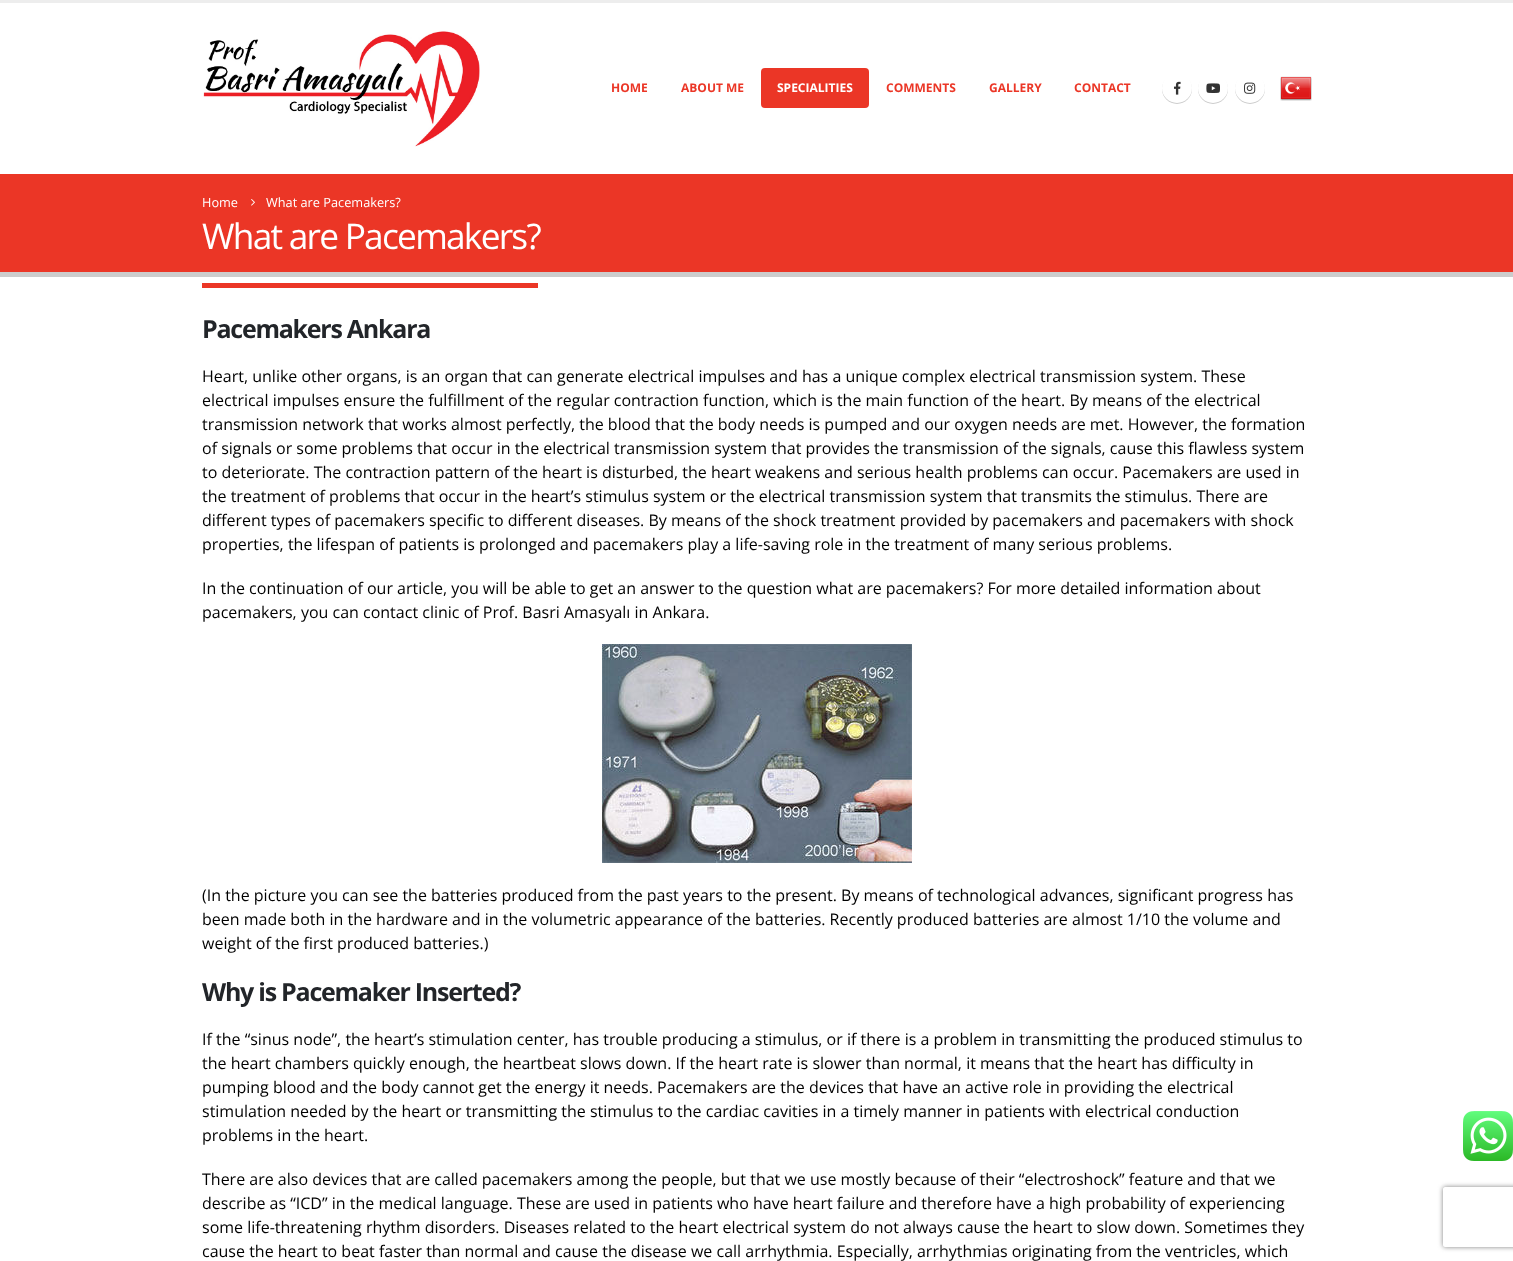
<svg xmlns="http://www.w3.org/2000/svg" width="1513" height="1261">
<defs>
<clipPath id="clip1"><path d="M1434 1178h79v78h-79zm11 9h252c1 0 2 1 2 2v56c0 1-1 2-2 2h-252c-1 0-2-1-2-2v-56c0-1 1-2 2-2z" clip-rule="evenodd"/></clipPath>
</defs>
<rect width="100%" height="100%" fill="#fff"/>
<rect width="1513" height="3" fill="#ededed"/>
<image x="203" y="31" width="277" height="116" href="media/1.png"/>
<text x="611" y="92" style="font-family:Open Sans;font-size:12px;font-weight:bold;fill:#eb3626">HOME</text>
<text x="681" y="92" style="font-family:Open Sans;font-size:12px;font-weight:bold;fill:#eb3626">ABOUT ME</text>
<rect x="761" y="68" width="108" height="40" rx="4" fill="#eb3626"/>
<text x="777" y="92" style="font-family:Open Sans;font-size:12px;font-weight:bold;fill:#fff">SPECIALITIES</text>
<text x="886" y="92" style="font-family:Open Sans;font-size:12px;font-weight:bold;fill:#eb3626">COMMENTS</text>
<text x="989" y="92" style="font-family:Open Sans;font-size:12px;font-weight:bold;fill:#eb3626">GALLERY</text>
<text x="1074" y="92" style="font-family:Open Sans;font-size:12px;font-weight:bold;fill:#eb3626">CONTACT</text>
<rect x="1162" y="74" width="30" height="30" rx="15" fill="#00000033" filter="blur(0.5px)"/>
<circle cx="1177" cy="88" r="15" fill="#fff"/>
<image x="1174" y="81" width="7" height="14" href="media/2.png"/>
<rect x="1198" y="74" width="30" height="30" rx="15" fill="#00000033" filter="blur(0.5px)"/>
<circle cx="1213" cy="88" r="15" fill="#fff"/>
<image x="1206" y="83" width="14" height="10" href="media/3.png"/>
<rect x="1235" y="74" width="30" height="30" rx="15" fill="#00000033" filter="blur(0.5px)"/>
<circle cx="1250" cy="88" r="15" fill="#fff"/>
<image x="1244" y="82" width="12" height="12" href="media/4.png"/>
<image x="1280" y="76" width="32" height="25" href="media/5.png"/>
<rect y="174" width="1513" height="98" fill="#eb3626"/>
<rect y="272" width="1513" height="5" fill="#ccc"/>
<text x="202" y="207" style="font-family:Open Sans;font-size:12.75px;fill:#fff">Home</text>
<image x="251" y="199" width="4" height="7" href="media/6.png"/>
<text x="266" y="207" style="font-family:Open Sans;font-size:12.75px;fill:#fff">What are Pacemakers?</text>
<text x="202" y="249" style="font-family:Open Sans;font-size:35.25px;letter-spacing:-1.75px;fill:#fff">What are Pacemakers?</text>
<rect x="202" y="283" width="336" height="5" fill="#eb3626"/>
<text x="202" y="338" style="font-family:Open Sans;font-size:25px;font-weight:bold;letter-spacing:-1.25px;fill:#222529">Pacemakers Ankara</text>
<text x="202" y="382" style="font-family:Open Sans;font-size:16px;fill:#000">Heart, unlike other organs, is an organ that can generate electrical impulses and has a unique complex electrical transmission system. These</text>
<text x="202" y="406" style="font-family:Open Sans;font-size:16px;fill:#000">electrical impulses ensure the fulfillment of the regular contraction function, which is the main function of the heart. By means of the electrical</text>
<text x="202" y="430" style="font-family:Open Sans;font-size:16px;fill:#000">transmission network that works almost perfectly, the blood that the body needs is pumped and our oxygen needs are met. However, the formation</text>
<text x="202" y="454" style="font-family:Open Sans;font-size:16px;fill:#000">of signals or some problems that occur in the electrical transmission system that provides the transmission of the signals, cause this flawless system</text>
<text x="202" y="478" style="font-family:Open Sans;font-size:16px;fill:#000">to deteriorate. The contraction pattern of the heart is disturbed, the heart weakens and serious health problems can occur. Pacemakers are used in</text>
<text x="202" y="502" style="font-family:Open Sans;font-size:16px;fill:#000">the treatment of problems that occur in the heart’s stimulus system or the electrical transmission system that transmits the stimulus. There are</text>
<text x="202" y="526" style="font-family:Open Sans;font-size:16px;fill:#000">different types of pacemakers specific to different diseases. By means of the shock treatment provided by pacemakers and pacemakers with shock</text>
<text x="202" y="550" style="font-family:Open Sans;font-size:16px;fill:#000">properties, the lifespan of patients is prolonged and pacemakers play a life-saving role in the treatment of many serious problems.</text>
<text x="202" y="594" style="font-family:Open Sans;font-size:16px;fill:#000">In the continuation of our article, you will be able to get an answer to the question what are pacemakers? For more detailed information about</text>
<text x="202" y="618" style="font-family:Open Sans;font-size:16px;fill:#000">pacemakers, you can contact clinic of Prof. Basri Amasyalı in Ankara.</text>
<image x="602" y="644" width="310" height="219" href="media/7.png"/>
<text x="202" y="901" style="font-family:Open Sans;font-size:16px;fill:#000">(In the picture you can see the batteries produced from the past years to the present. By means of technological advances, significant progress has</text>
<text x="202" y="925" style="font-family:Open Sans;font-size:16px;fill:#000">been made both in the hardware and in the volumetric appearance of the batteries. Recently produced batteries are almost 1/10 the volume and</text>
<text x="202" y="949" style="font-family:Open Sans;font-size:16px;fill:#000">weight of the first produced batteries.)</text>
<text x="202" y="1001" style="font-family:Open Sans;font-size:25px;font-weight:bold;letter-spacing:-1.25px;fill:#222529">Why is Pacemaker Inserted?</text>
<text x="202" y="1045" style="font-family:Open Sans;font-size:16px;fill:#000">If the “sinus node”, the heart’s stimulation center, has trouble producing a stimulus, or if there is a problem in transmitting the produced stimulus to</text>
<text x="202" y="1069" style="font-family:Open Sans;font-size:16px;fill:#000">the heart chambers quickly enough, the heartbeat slows down. If the heart rate is slower than normal, it means that the heart has difficulty in</text>
<text x="202" y="1093" style="font-family:Open Sans;font-size:16px;fill:#000">pumping blood and the body cannot get the energy it needs. Pacemakers are the devices that have an active role in providing the electrical</text>
<text x="202" y="1117" style="font-family:Open Sans;font-size:16px;fill:#000">stimulation needed by the heart or transmitting the stimulus to the cardiac cavities in a timely manner in patients with electrical conduction</text>
<text x="202" y="1141" style="font-family:Open Sans;font-size:16px;fill:#000">problems in the heart.</text>
<text x="202" y="1185" style="font-family:Open Sans;font-size:16px;fill:#000">There are also devices that are called pacemakers among the people, but that we use mostly because of their “electroshock” feature and that we</text>
<text x="202" y="1209" style="font-family:Open Sans;font-size:16px;fill:#000">describe as “ICD” in the medical language. These are used in patients who have heart failure and therefore have a high probability of experiencing</text>
<text x="202" y="1233" style="font-family:Open Sans;font-size:16px;fill:#000">some life-threatening rhythm disorders. Diseases related to the heart electrical system do not always cause the heart to slow down. Sometimes they</text>
<text x="202" y="1257" style="font-family:Open Sans;font-size:16px;fill:#000">cause the heart to beat faster than normal and cause the disease we call arrhythmia. Especially, arrhythmias originating from the ventricles, which</text>
<image x="1463" y="1111" width="50" height="50" href="media/8.png"/>
<g clip-path="url(#clip1)">
<rect x="1443" y="1187" width="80" height="60" rx="2" fill="#808080" filter="blur(2.5px)"/>
</g>
</svg>
